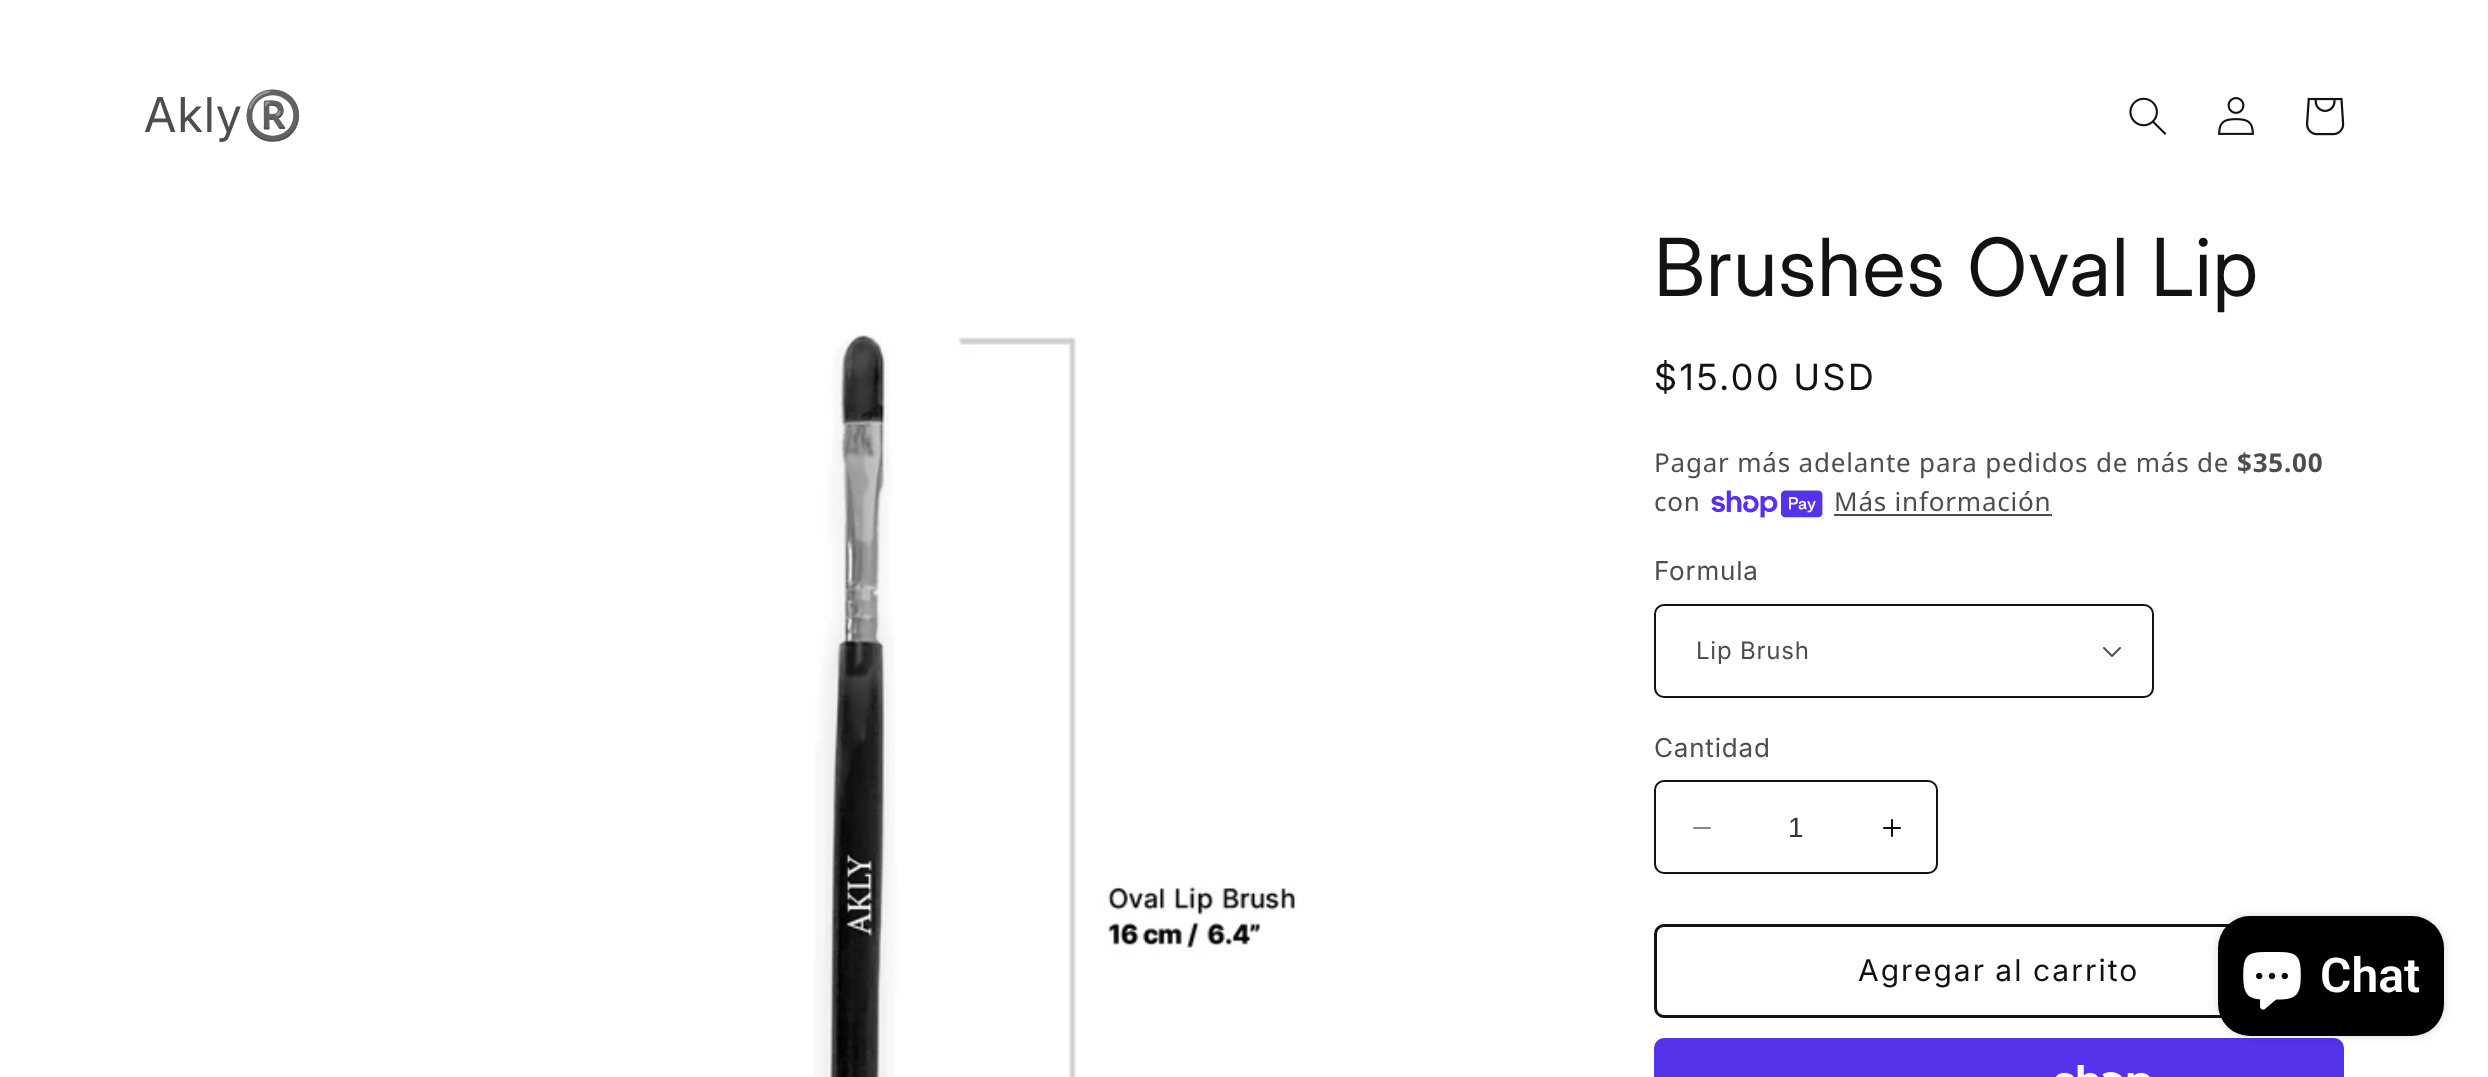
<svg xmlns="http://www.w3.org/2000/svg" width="2488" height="1077">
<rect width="100%" height="100%" fill="#fff"/>
<text x="144" y="132" style="font-family:'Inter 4';font-size:48px;letter-spacing:1.25px;fill:#4d4d4d">Akly</text>
<text x="243" y="132" style="font-family:Noto Color Emoji;font-size:48px;letter-spacing:1.25px;fill:#4d4d4d">®️</text>
<image x="2129" y="97" width="37" height="38" href="media/1.png"/>
<image x="2218" y="97" width="36" height="38" href="media/2.png"/>
<image x="2306" y="97" width="39" height="39" href="media/3.png"/>
<image x="813" y="335" width="484" height="742" href="media/4.png"/>
<text x="1654" y="296" style="font-family:Inter;font-size:80px;letter-spacing:1.25px;fill:#121212">Brushes Oval Lip</text>
<text x="1654" y="390" style="font-family:'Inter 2';font-size:36px;letter-spacing:2.6px;fill:#121212">$15.00 USD</text>
<text x="1654" y="472" style="font-family:Noto Sans;font-size:26px;letter-spacing:0.8px;fill:#4d4d4d">Pagar más adelante para pedidos de más de</text>
<text x="2237" y="472" style="font-family:Noto Sans;font-size:26px;font-weight:bold;letter-spacing:0.8px;fill:#4d4d4d">$35.00</text>
<text x="1654" y="511" style="font-family:Noto Sans;font-size:26px;letter-spacing:0.8px;fill:#4d4d4d">con</text>
<image x="1711" y="490" width="112" height="28" href="media/5.png"/>
<text x="1834" y="511" style="font-family:Noto Sans;font-size:26px;letter-spacing:0.8px;fill:#4d4d4d">Más información</text>
<rect x="1834" y="514" width="218" height="2" fill="#4d4d4d"/>
<text x="1654" y="580" style="font-family:'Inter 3';font-size:26px;letter-spacing:0.8px;fill:#4d4d4d">Formula</text>
<image x="2103" y="647" width="18" height="10" href="media/6.png"/>
<rect x="1655" y="605" width="498" height="92" rx="9" fill="none" stroke="#121212" stroke-width="2"/>
<text x="1696" y="659" style="font-family:'Inter 3';font-size:24px;letter-spacing:0.8px;fill:#4d4d4d">Lip Brush</text>
<text x="1654" y="757" style="font-family:'Inter 3';font-size:26px;letter-spacing:0.8px;fill:#4d4d4d">Cantidad</text>
<image x="1693" y="827" width="18" height="2" href="media/7.png"/>
<image x="1883" y="819" width="18" height="18" href="media/8.png"/>
<rect x="1655" y="781" width="282" height="92" rx="9" fill="none" stroke="#121212" stroke-width="2"/>
<text x="1788" y="837" style="font-family:Liberation Sans;font-size:28px;fill:#363636">1</text>
<rect x="1655.5" y="925.5" width="687" height="91" rx="8.5" fill="none" stroke="#121212" stroke-width="3"/>
<text x="1858" y="981" word-spacing="-1" style="font-family:'Inter 3';font-size:30px;letter-spacing:2px;fill:#121212">Agregar al carrito</text>
<rect x="1654" y="1038" width="690" height="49" rx="10" fill="#5433eb"/>
<image x="2056" y="1065" width="94" height="12" href="media/9.png"/>
<rect x="2218" y="916" width="226" height="120" rx="32" fill="#00000026" filter="blur(5px)"/>
<rect x="2218" y="916" width="226" height="120" rx="32" fill="#000"/>
<image x="2243" y="952" width="58" height="58" href="media/10.png"/>
<text x="2320" y="992" style="font-family:Roboto;font-size:48px;font-weight:600;fill:#fff">Chat</text>
</svg>
